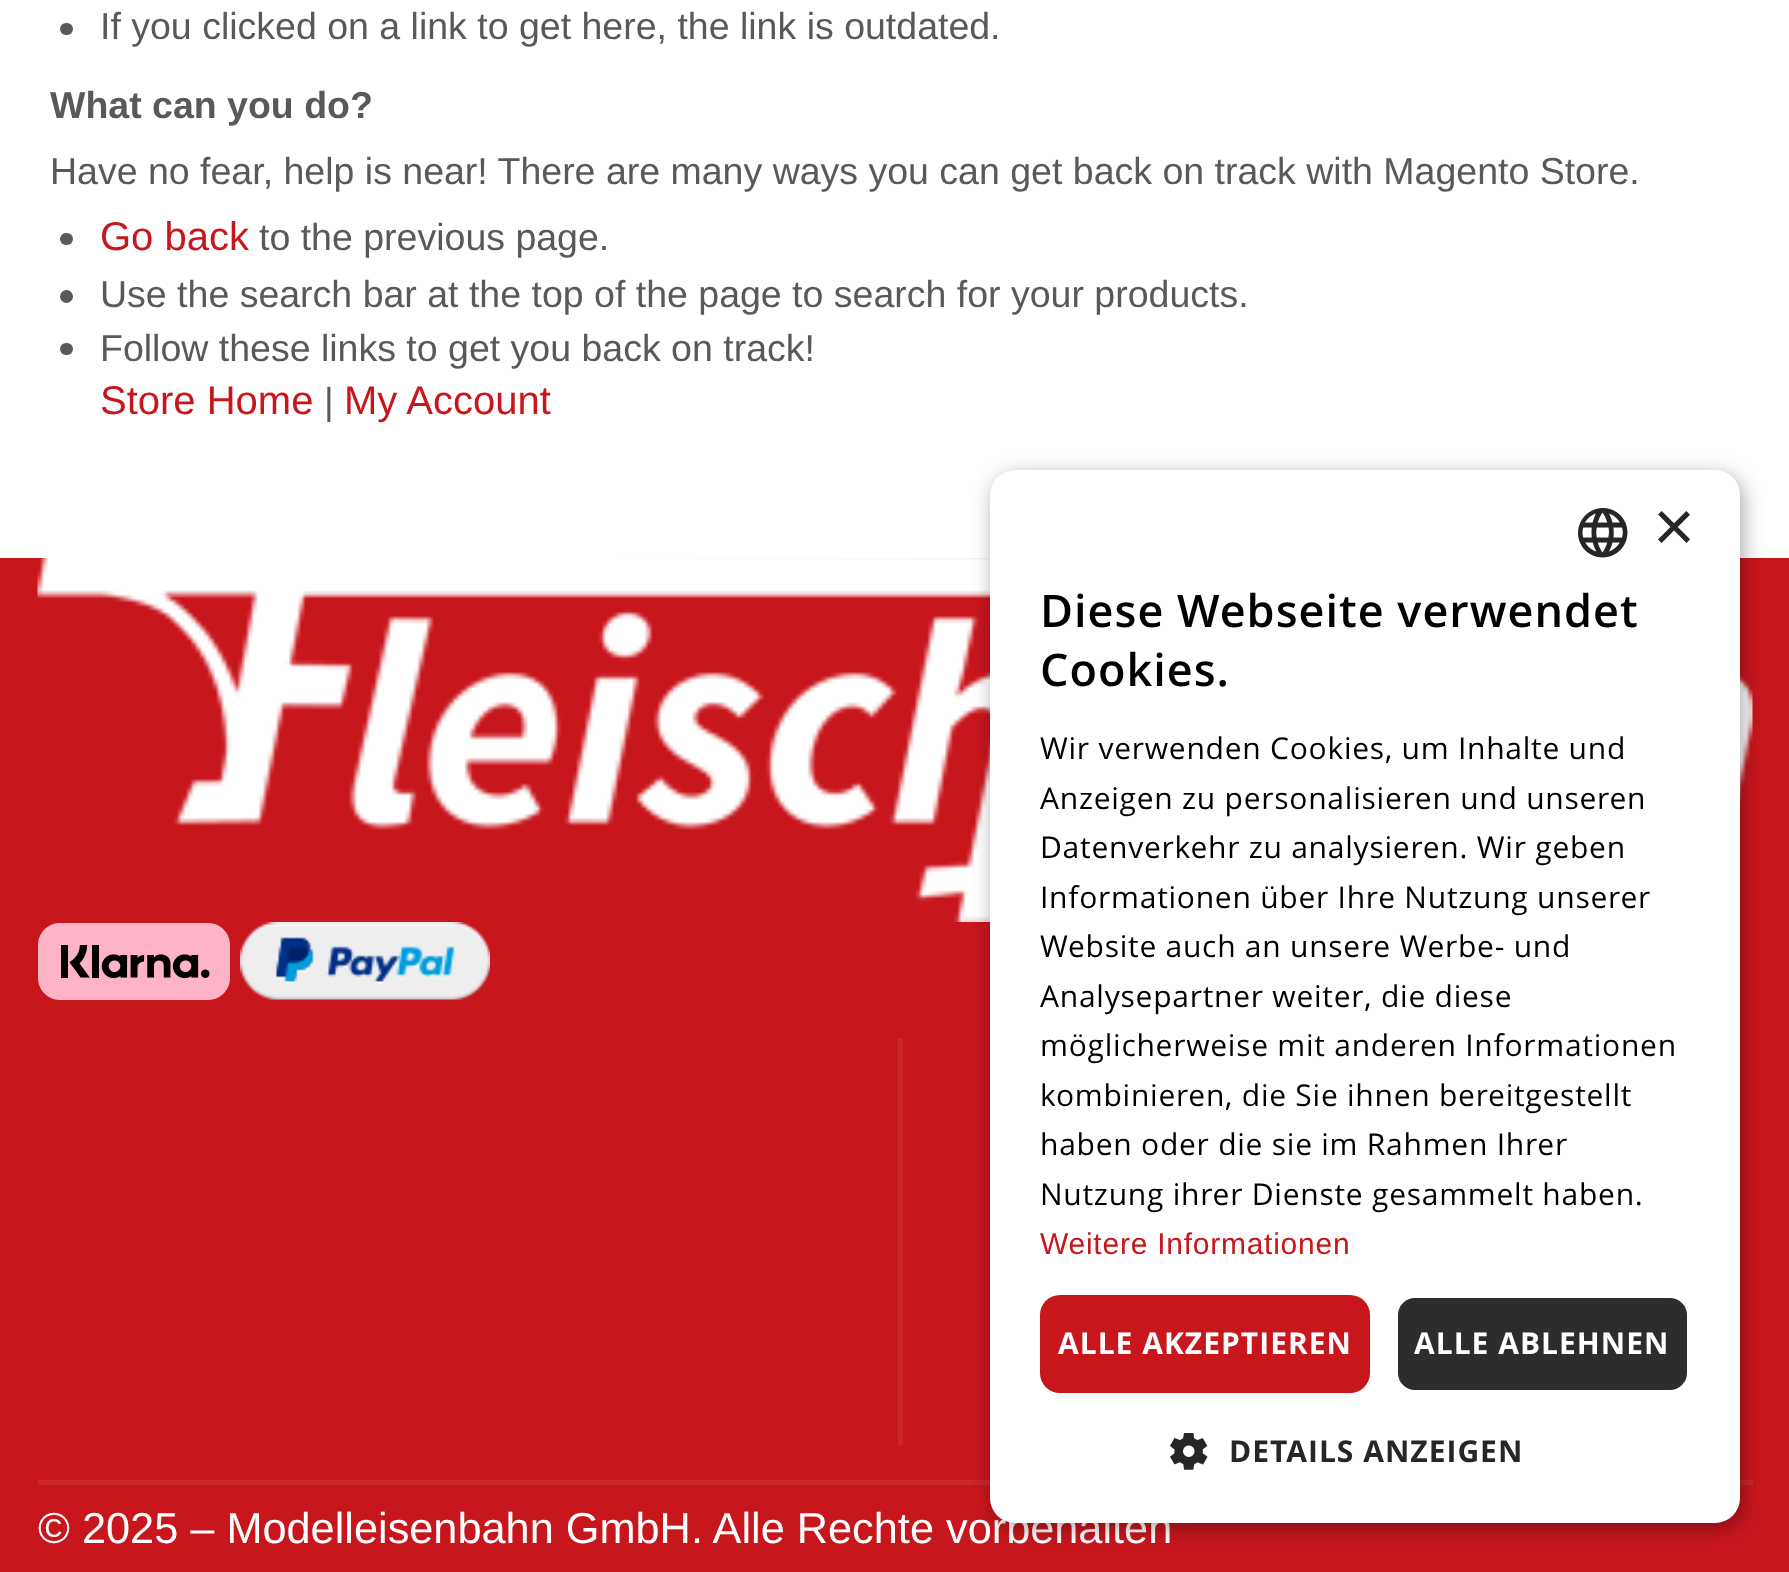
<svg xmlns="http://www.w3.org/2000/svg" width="1789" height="1572">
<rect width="100%" height="100%" fill="#fff"/>
<rect x="60" y="23" width="13" height="12" rx="6" fill="#58595b"/>
<text x="100" y="39" style="font-family:Liberation Sans;font-size:37.5px;fill:#58595b">If you clicked on a link to get here, the link is outdated.</text>
<text x="50" y="118" style="font-family:Liberation Sans;font-size:37.5px;font-weight:bold;fill:#58595b">What can you do?</text>
<text x="50" y="184" style="font-family:Liberation Sans;font-size:37.5px;fill:#58595b">Have no fear, help is near! There are many ways you can get back on track with Magento Store.</text>
<rect x="60" y="233" width="13" height="12" rx="6" fill="#58595b"/>
<text x="100" y="250" style="font-family:Liberation Sans;font-size:40px;fill:#c8161d">Go back</text>
<text x="259" y="250" style="font-family:Liberation Sans;font-size:37.5px;fill:#58595b">to the previous page.</text>
<circle cx="66.5" cy="296.5" r="6.5" fill="#58595b"/>
<text x="100" y="307" style="font-family:Liberation Sans;font-size:37.5px;fill:#58595b">Use the search bar at the top of the page to search for your products.</text>
<rect x="60" y="343" width="13" height="12" rx="6" fill="#58595b"/>
<text x="100" y="361" style="font-family:Liberation Sans;font-size:37.5px;fill:#58595b">Follow these links to get you back on track!</text>
<text x="100" y="414" style="font-family:Liberation Sans;font-size:40px;fill:#c8161d">Store Home</text>
<text x="324" y="414" style="font-family:Liberation Sans;font-size:37.5px;fill:#58595b">|</text>
<text x="344" y="414" style="font-family:Liberation Sans;font-size:40px;fill:#c8161d">My Account</text>
<rect y="558" width="1789" height="1014" fill="#c8161d"/>
<image x="37" y="558" width="1716" height="364" href="media/1.png"/>
<image x="38" y="923" width="192" height="77" href="media/2.png"/>
<image x="240" y="922" width="250" height="78" href="media/3.png"/>
<rect x="898" y="1038" width="5" height="407" fill="#ca2829"/>
<rect x="38" y="1480" width="1715" height="5" fill="#ca2829"/>
<text x="38" y="1543" style="font-family:Liberation Sans;font-size:43.3px;fill:#fff">© 2025 – Modelleisenbahn GmbH. Alle Rechte vorbehalten</text>
<rect x="993" y="475" width="750" height="1053" rx="25" fill="#00000059" filter="blur(10px)"/>
<rect x="990" y="470" width="750" height="1053" rx="25" fill="#fff"/>
<image x="1578" y="508" width="50" height="50" href="media/4.png"/>
<text x="1653" y="551" style="font-family:Liberation Sans;font-size:72px;fill:#262626">×</text>
<text x="1040" y="627" style="font-family:Open Sans;font-size:45px;font-weight:600;letter-spacing:1px;fill:#000">Diese Webseite verwendet</text>
<text x="1040" y="686" style="font-family:Open Sans;font-size:45px;font-weight:600;letter-spacing:1px;fill:#000">Cookies.</text>
<text x="1040" y="759" style="font-family:Open Sans;font-size:30px;letter-spacing:0.75px;fill:#000">Wir verwenden Cookies, um Inhalte und</text>
<text x="1040" y="809" style="font-family:Open Sans;font-size:30px;letter-spacing:0.75px;fill:#000">Anzeigen zu personalisieren und unseren</text>
<text x="1040" y="858" style="font-family:Open Sans;font-size:30px;letter-spacing:0.75px;fill:#000">Datenverkehr zu analysieren. Wir geben</text>
<text x="1040" y="908" style="font-family:Open Sans;font-size:30px;letter-spacing:0.75px;fill:#000">Informationen über Ihre Nutzung unserer</text>
<text x="1040" y="957" style="font-family:Open Sans;font-size:30px;letter-spacing:0.75px;fill:#000">Website auch an unsere Werbe- und</text>
<text x="1040" y="1007" style="font-family:Open Sans;font-size:30px;letter-spacing:0.75px;fill:#000">Analysepartner weiter, die diese</text>
<text x="1040" y="1056" style="font-family:Open Sans;font-size:30px;letter-spacing:0.75px;fill:#000">möglicherweise mit anderen Informationen</text>
<text x="1040" y="1106" style="font-family:Open Sans;font-size:30px;letter-spacing:0.75px;fill:#000">kombinieren, die Sie ihnen bereitgestellt</text>
<text x="1040" y="1155" style="font-family:Open Sans;font-size:30px;letter-spacing:0.75px;fill:#000">haben oder die sie im Rahmen Ihrer</text>
<text x="1040" y="1205" style="font-family:Open Sans;font-size:30px;letter-spacing:0.75px;fill:#000">Nutzung ihrer Dienste gesammelt haben.</text>
<text x="1040" y="1254" style="font-family:Liberation Sans;font-size:30px;letter-spacing:0.75px;fill:#c8161d">Weitere Informationen</text>
<rect x="1040" y="1295" width="330" height="98" rx="20" fill="#c8161d"/>
<text x="1058" y="1354" style="font-family:Open Sans;font-size:30px;font-weight:bold;letter-spacing:1px;fill:#fff">ALLE AKZEPTIEREN</text>
<rect x="1396.5" y="1296.5" width="292" height="95" rx="18.5" fill="#2d2d2d" stroke="#fff" stroke-width="3"/>
<text x="1414" y="1354" style="font-family:Open Sans;font-size:30px;font-weight:bold;letter-spacing:1px;fill:#fff">ALLE ABLEHNEN</text>
<image x="1170" y="1433" width="38" height="37" href="media/5.png"/>
<text x="1229" y="1462" style="font-family:Open Sans;font-size:30px;font-weight:bold;letter-spacing:1px;fill:#262626">DETAILS ANZEIGEN</text>
</svg>
